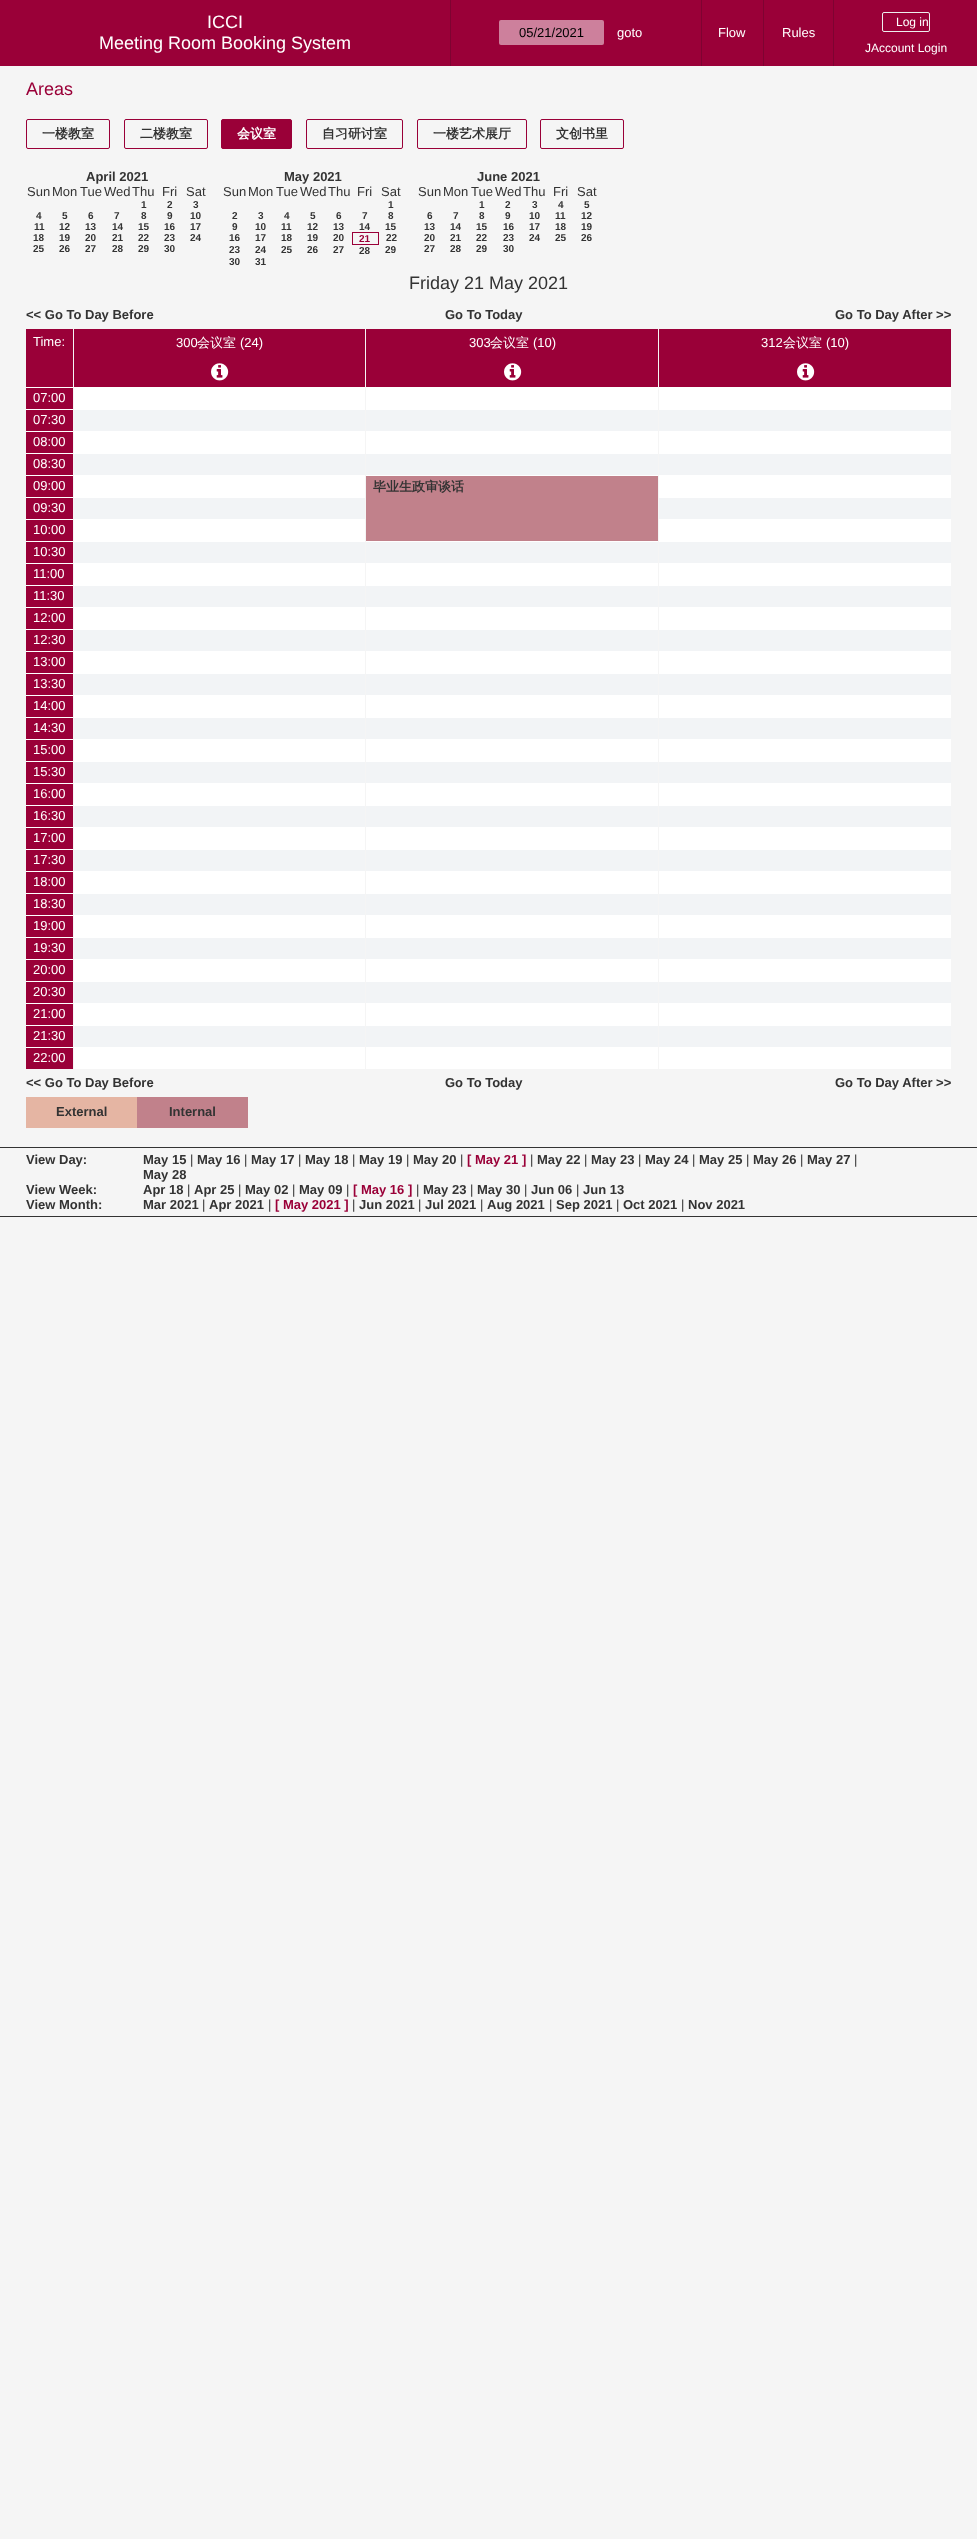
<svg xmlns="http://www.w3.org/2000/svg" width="977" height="2539">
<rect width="100%" height="100%" fill="#f5f5f5"/>
<rect width="977" height="66" fill="#9a0038"/>
<text x="207" y="28" style="font-family:Liberation Sans;font-size:18px;fill:#fff">ICCI</text>
<text x="99" y="49" style="font-family:Liberation Sans;font-size:18px;fill:#fff">Meeting Room Booking System</text>
<rect x="450" width="1" height="66" fill="#7e0331"/>
<rect x="499" y="20" width="105" height="25" rx="2" fill="#cd809c"/>
<text x="519" y="37" style="font-family:Liberation Sans;font-size:13px;fill:#000">05/21/2021</text>
<text x="617" y="37" style="font-family:Liberation Sans;font-size:13px;fill:#fff">goto</text>
<rect x="701" width="1" height="66" fill="#7e0331"/>
<text x="718" y="37" style="font-family:Liberation Sans;font-size:13px;fill:#fff">Flow</text>
<rect x="763" width="1" height="66" fill="#7e0331"/>
<text x="782" y="37" style="font-family:Liberation Sans;font-size:13px;fill:#fff">Rules</text>
<rect x="833" width="1" height="66" fill="#7e0331"/>
<rect x="882.5" y="12.5" width="47" height="19" rx="1.5" fill="none" stroke="#eee"/>
<text x="896" y="26" style="font-family:Liberation Sans;font-size:12px;fill:#fff">Log in</text>
<text x="865" y="52" style="font-family:Liberation Sans;font-size:12px;fill:#fff">JAccount Login</text>
<text x="26" y="95" style="font-family:Liberation Sans;font-size:18px;fill:#9a0038">Areas</text>
<rect x="26.5" y="119.5" width="83" height="29" rx="1.5" fill="none" stroke="#9a0038"/>
<text x="42" y="138" style="font-family:WenQuanYi Zen Hei;font-size:13px;font-weight:bold;fill:#333">一楼教室</text>
<rect x="124.5" y="119.5" width="83" height="29" rx="1.5" fill="none" stroke="#9a0038"/>
<text x="140" y="138" style="font-family:WenQuanYi Zen Hei;font-size:13px;font-weight:bold;fill:#333">二楼教室</text>
<rect x="221.5" y="119.5" width="70" height="29" rx="1.5" fill="#9a0038" stroke="#9a0038"/>
<text x="237" y="138" style="font-family:WenQuanYi Zen Hei;font-size:13px;font-weight:bold;fill:#fff">会议室</text>
<rect x="306.5" y="119.5" width="96" height="29" rx="1.5" fill="none" stroke="#9a0038"/>
<text x="322" y="138" style="font-family:WenQuanYi Zen Hei;font-size:13px;font-weight:bold;fill:#333">自习研讨室</text>
<rect x="417.5" y="119.5" width="109" height="29" rx="1.5" fill="none" stroke="#9a0038"/>
<text x="433" y="138" style="font-family:WenQuanYi Zen Hei;font-size:13px;font-weight:bold;fill:#333">一楼艺术展厅</text>
<rect x="540.5" y="119.5" width="83" height="29" rx="1.5" fill="none" stroke="#9a0038"/>
<text x="556" y="138" style="font-family:WenQuanYi Zen Hei;font-size:13px;font-weight:bold;fill:#333">文创书里</text>
<text x="86" y="181" style="font-family:Liberation Sans;font-size:13px;font-weight:bold;fill:#333">April 2021</text>
<text x="27" y="196" style="font-family:Liberation Sans;font-size:13px;fill:#333">Sun</text>
<text x="52" y="196" style="font-family:Liberation Sans;font-size:13px;fill:#333">Mon</text>
<text x="80" y="196" style="font-family:Liberation Sans;font-size:13px;fill:#333">Tue</text>
<text x="104" y="196" style="font-family:Liberation Sans;font-size:13px;fill:#333">Wed</text>
<text x="132" y="196" style="font-family:Liberation Sans;font-size:13px;fill:#333">Thu</text>
<text x="162" y="196" style="font-family:Liberation Sans;font-size:13px;fill:#333">Fri</text>
<text x="186" y="196" style="font-family:Liberation Sans;font-size:13px;fill:#333">Sat</text>
<text x="141" y="208" style="font-family:Liberation Sans;font-size:10px;font-weight:bold;fill:#333">1</text>
<text x="167" y="208" style="font-family:Liberation Sans;font-size:10px;font-weight:bold;fill:#333">2</text>
<text x="193" y="208" style="font-family:Liberation Sans;font-size:10px;font-weight:bold;fill:#333">3</text>
<text x="36" y="219" style="font-family:Liberation Sans;font-size:10px;font-weight:bold;fill:#333">4</text>
<text x="62" y="219" style="font-family:Liberation Sans;font-size:10px;font-weight:bold;fill:#333">5</text>
<text x="88" y="219" style="font-family:Liberation Sans;font-size:10px;font-weight:bold;fill:#333">6</text>
<text x="114" y="219" style="font-family:Liberation Sans;font-size:10px;font-weight:bold;fill:#333">7</text>
<text x="141" y="219" style="font-family:Liberation Sans;font-size:10px;font-weight:bold;fill:#333">8</text>
<text x="167" y="219" style="font-family:Liberation Sans;font-size:10px;font-weight:bold;fill:#333">9</text>
<text x="190" y="219" style="font-family:Liberation Sans;font-size:10px;font-weight:bold;fill:#333">10</text>
<text x="34" y="230" style="font-family:Liberation Sans;font-size:10px;font-weight:bold;fill:#333">11</text>
<text x="59" y="230" style="font-family:Liberation Sans;font-size:10px;font-weight:bold;fill:#333">12</text>
<text x="85" y="230" style="font-family:Liberation Sans;font-size:10px;font-weight:bold;fill:#333">13</text>
<text x="112" y="230" style="font-family:Liberation Sans;font-size:10px;font-weight:bold;fill:#333">14</text>
<text x="138" y="230" style="font-family:Liberation Sans;font-size:10px;font-weight:bold;fill:#333">15</text>
<text x="164" y="230" style="font-family:Liberation Sans;font-size:10px;font-weight:bold;fill:#333">16</text>
<text x="190" y="230" style="font-family:Liberation Sans;font-size:10px;font-weight:bold;fill:#333">17</text>
<text x="33" y="241" style="font-family:Liberation Sans;font-size:10px;font-weight:bold;fill:#333">18</text>
<text x="59" y="241" style="font-family:Liberation Sans;font-size:10px;font-weight:bold;fill:#333">19</text>
<text x="85" y="241" style="font-family:Liberation Sans;font-size:10px;font-weight:bold;fill:#333">20</text>
<text x="112" y="241" style="font-family:Liberation Sans;font-size:10px;font-weight:bold;fill:#333">21</text>
<text x="138" y="241" style="font-family:Liberation Sans;font-size:10px;font-weight:bold;fill:#333">22</text>
<text x="164" y="241" style="font-family:Liberation Sans;font-size:10px;font-weight:bold;fill:#333">23</text>
<text x="190" y="241" style="font-family:Liberation Sans;font-size:10px;font-weight:bold;fill:#333">24</text>
<text x="33" y="252" style="font-family:Liberation Sans;font-size:10px;font-weight:bold;fill:#333">25</text>
<text x="59" y="252" style="font-family:Liberation Sans;font-size:10px;font-weight:bold;fill:#333">26</text>
<text x="85" y="252" style="font-family:Liberation Sans;font-size:10px;font-weight:bold;fill:#333">27</text>
<text x="112" y="252" style="font-family:Liberation Sans;font-size:10px;font-weight:bold;fill:#333">28</text>
<text x="138" y="252" style="font-family:Liberation Sans;font-size:10px;font-weight:bold;fill:#333">29</text>
<text x="164" y="252" style="font-family:Liberation Sans;font-size:10px;font-weight:bold;fill:#333">30</text>
<text x="284" y="181" style="font-family:Liberation Sans;font-size:13px;font-weight:bold;fill:#333">May 2021</text>
<text x="223" y="196" style="font-family:Liberation Sans;font-size:13px;fill:#333">Sun</text>
<text x="248" y="196" style="font-family:Liberation Sans;font-size:13px;fill:#333">Mon</text>
<text x="276" y="196" style="font-family:Liberation Sans;font-size:13px;fill:#333">Tue</text>
<text x="300" y="196" style="font-family:Liberation Sans;font-size:13px;fill:#333">Wed</text>
<text x="328" y="196" style="font-family:Liberation Sans;font-size:13px;fill:#333">Thu</text>
<text x="357" y="196" style="font-family:Liberation Sans;font-size:13px;fill:#333">Fri</text>
<text x="381" y="196" style="font-family:Liberation Sans;font-size:13px;fill:#333">Sat</text>
<text x="388" y="208" style="font-family:Liberation Sans;font-size:10px;font-weight:bold;fill:#333">1</text>
<text x="232" y="219" style="font-family:Liberation Sans;font-size:10px;font-weight:bold;fill:#333">2</text>
<text x="258" y="219" style="font-family:Liberation Sans;font-size:10px;font-weight:bold;fill:#333">3</text>
<text x="284" y="219" style="font-family:Liberation Sans;font-size:10px;font-weight:bold;fill:#333">4</text>
<text x="310" y="219" style="font-family:Liberation Sans;font-size:10px;font-weight:bold;fill:#333">5</text>
<text x="336" y="219" style="font-family:Liberation Sans;font-size:10px;font-weight:bold;fill:#333">6</text>
<text x="362" y="219" style="font-family:Liberation Sans;font-size:10px;font-weight:bold;fill:#333">7</text>
<text x="388" y="219" style="font-family:Liberation Sans;font-size:10px;font-weight:bold;fill:#333">8</text>
<text x="232" y="230" style="font-family:Liberation Sans;font-size:10px;font-weight:bold;fill:#333">9</text>
<text x="255" y="230" style="font-family:Liberation Sans;font-size:10px;font-weight:bold;fill:#333">10</text>
<text x="281" y="230" style="font-family:Liberation Sans;font-size:10px;font-weight:bold;fill:#333">11</text>
<text x="307" y="230" style="font-family:Liberation Sans;font-size:10px;font-weight:bold;fill:#333">12</text>
<text x="333" y="230" style="font-family:Liberation Sans;font-size:10px;font-weight:bold;fill:#333">13</text>
<text x="359" y="230" style="font-family:Liberation Sans;font-size:10px;font-weight:bold;fill:#333">14</text>
<text x="385" y="230" style="font-family:Liberation Sans;font-size:10px;font-weight:bold;fill:#333">15</text>
<text x="229" y="241" style="font-family:Liberation Sans;font-size:10px;font-weight:bold;fill:#333">16</text>
<text x="255" y="241" style="font-family:Liberation Sans;font-size:10px;font-weight:bold;fill:#333">17</text>
<text x="281" y="241" style="font-family:Liberation Sans;font-size:10px;font-weight:bold;fill:#333">18</text>
<text x="307" y="241" style="font-family:Liberation Sans;font-size:10px;font-weight:bold;fill:#333">19</text>
<text x="333" y="241" style="font-family:Liberation Sans;font-size:10px;font-weight:bold;fill:#333">20</text>
<rect x="352" y="232" width="27" height="1" fill="#9a0038"/>
<rect x="378" y="232" width="1" height="13" fill="#9a0038"/>
<rect x="352" y="244" width="27" height="1" fill="#9a0038"/>
<rect x="352" y="232" width="1" height="13" fill="#9a0038"/>
<text x="359" y="242" style="font-family:Liberation Sans;font-size:10px;font-weight:bold;fill:#9a0038">21</text>
<text x="386" y="241" style="font-family:Liberation Sans;font-size:10px;font-weight:bold;fill:#333">22</text>
<text x="229" y="253" style="font-family:Liberation Sans;font-size:10px;font-weight:bold;fill:#333">23</text>
<text x="255" y="253" style="font-family:Liberation Sans;font-size:10px;font-weight:bold;fill:#333">24</text>
<text x="281" y="253" style="font-family:Liberation Sans;font-size:10px;font-weight:bold;fill:#333">25</text>
<text x="307" y="253" style="font-family:Liberation Sans;font-size:10px;font-weight:bold;fill:#333">26</text>
<text x="333" y="253" style="font-family:Liberation Sans;font-size:10px;font-weight:bold;fill:#333">27</text>
<text x="359" y="254" style="font-family:Liberation Sans;font-size:10px;font-weight:bold;fill:#333">28</text>
<text x="385" y="253" style="font-family:Liberation Sans;font-size:10px;font-weight:bold;fill:#333">29</text>
<text x="229" y="265" style="font-family:Liberation Sans;font-size:10px;font-weight:bold;fill:#333">30</text>
<text x="255" y="265" style="font-family:Liberation Sans;font-size:10px;font-weight:bold;fill:#333">31</text>
<text x="477" y="181" style="font-family:Liberation Sans;font-size:13px;font-weight:bold;fill:#333">June 2021</text>
<text x="418" y="196" style="font-family:Liberation Sans;font-size:13px;fill:#333">Sun</text>
<text x="443" y="196" style="font-family:Liberation Sans;font-size:13px;fill:#333">Mon</text>
<text x="471" y="196" style="font-family:Liberation Sans;font-size:13px;fill:#333">Tue</text>
<text x="495" y="196" style="font-family:Liberation Sans;font-size:13px;fill:#333">Wed</text>
<text x="523" y="196" style="font-family:Liberation Sans;font-size:13px;fill:#333">Thu</text>
<text x="553" y="196" style="font-family:Liberation Sans;font-size:13px;fill:#333">Fri</text>
<text x="577" y="196" style="font-family:Liberation Sans;font-size:13px;fill:#333">Sat</text>
<text x="479" y="208" style="font-family:Liberation Sans;font-size:10px;font-weight:bold;fill:#333">1</text>
<text x="505" y="208" style="font-family:Liberation Sans;font-size:10px;font-weight:bold;fill:#333">2</text>
<text x="532" y="208" style="font-family:Liberation Sans;font-size:10px;font-weight:bold;fill:#333">3</text>
<text x="558" y="208" style="font-family:Liberation Sans;font-size:10px;font-weight:bold;fill:#333">4</text>
<text x="584" y="208" style="font-family:Liberation Sans;font-size:10px;font-weight:bold;fill:#333">5</text>
<text x="427" y="219" style="font-family:Liberation Sans;font-size:10px;font-weight:bold;fill:#333">6</text>
<text x="453" y="219" style="font-family:Liberation Sans;font-size:10px;font-weight:bold;fill:#333">7</text>
<text x="479" y="219" style="font-family:Liberation Sans;font-size:10px;font-weight:bold;fill:#333">8</text>
<text x="505" y="219" style="font-family:Liberation Sans;font-size:10px;font-weight:bold;fill:#333">9</text>
<text x="529" y="219" style="font-family:Liberation Sans;font-size:10px;font-weight:bold;fill:#333">10</text>
<text x="555" y="219" style="font-family:Liberation Sans;font-size:10px;font-weight:bold;fill:#333">11</text>
<text x="581" y="219" style="font-family:Liberation Sans;font-size:10px;font-weight:bold;fill:#333">12</text>
<text x="424" y="230" style="font-family:Liberation Sans;font-size:10px;font-weight:bold;fill:#333">13</text>
<text x="450" y="230" style="font-family:Liberation Sans;font-size:10px;font-weight:bold;fill:#333">14</text>
<text x="476" y="230" style="font-family:Liberation Sans;font-size:10px;font-weight:bold;fill:#333">15</text>
<text x="503" y="230" style="font-family:Liberation Sans;font-size:10px;font-weight:bold;fill:#333">16</text>
<text x="529" y="230" style="font-family:Liberation Sans;font-size:10px;font-weight:bold;fill:#333">17</text>
<text x="555" y="230" style="font-family:Liberation Sans;font-size:10px;font-weight:bold;fill:#333">18</text>
<text x="581" y="230" style="font-family:Liberation Sans;font-size:10px;font-weight:bold;fill:#333">19</text>
<text x="424" y="241" style="font-family:Liberation Sans;font-size:10px;font-weight:bold;fill:#333">20</text>
<text x="450" y="241" style="font-family:Liberation Sans;font-size:10px;font-weight:bold;fill:#333">21</text>
<text x="476" y="241" style="font-family:Liberation Sans;font-size:10px;font-weight:bold;fill:#333">22</text>
<text x="503" y="241" style="font-family:Liberation Sans;font-size:10px;font-weight:bold;fill:#333">23</text>
<text x="529" y="241" style="font-family:Liberation Sans;font-size:10px;font-weight:bold;fill:#333">24</text>
<text x="555" y="241" style="font-family:Liberation Sans;font-size:10px;font-weight:bold;fill:#333">25</text>
<text x="581" y="241" style="font-family:Liberation Sans;font-size:10px;font-weight:bold;fill:#333">26</text>
<text x="424" y="252" style="font-family:Liberation Sans;font-size:10px;font-weight:bold;fill:#333">27</text>
<text x="450" y="252" style="font-family:Liberation Sans;font-size:10px;font-weight:bold;fill:#333">28</text>
<text x="476" y="252" style="font-family:Liberation Sans;font-size:10px;font-weight:bold;fill:#333">29</text>
<text x="503" y="252" style="font-family:Liberation Sans;font-size:10px;font-weight:bold;fill:#333">30</text>
<text x="409" y="289" style="font-family:Liberation Sans;font-size:18px;fill:#333">Friday 21 May 2021</text>
<text x="26" y="319" style="font-family:Liberation Sans;font-size:13px;font-weight:bold;fill:#333">&lt;&lt; Go To Day Before</text>
<text x="445" y="319" style="font-family:Liberation Sans;font-size:13px;font-weight:bold;fill:#333">Go To Today</text>
<text x="835" y="319" style="font-family:Liberation Sans;font-size:13px;font-weight:bold;fill:#333">Go To Day After &gt;&gt;</text>
<rect x="26" y="329" width="47" height="58" fill="#9a0038"/>
<text x="33" y="346" style="font-family:Liberation Sans;font-size:13px;fill:#fff">Time:</text>
<rect x="74" y="329" width="291" height="58" fill="#9a0038"/>
<text x="176" y="347" style="font-family:Liberation Sans;font-size:13px;fill:#fff">300</text>
<text x="197" y="347" style="font-family:WenQuanYi Zen Hei;font-size:13px;font-weight:500;fill:#fff">会议室</text>
<text x="240" y="347" style="font-family:Liberation Sans;font-size:13px;fill:#fff">(24)</text>
<image x="211" y="363" width="18" height="18" href="media/1.png"/>
<rect x="366" y="329" width="292" height="58" fill="#9a0038"/>
<text x="469" y="347" style="font-family:Liberation Sans;font-size:13px;fill:#fff">303</text>
<text x="490" y="347" style="font-family:WenQuanYi Zen Hei;font-size:13px;font-weight:500;fill:#fff">会议室</text>
<text x="533" y="347" style="font-family:Liberation Sans;font-size:13px;fill:#fff">(10)</text>
<image x="504" y="363" width="18" height="18" href="media/1.png"/>
<rect x="659" y="329" width="292" height="58" fill="#9a0038"/>
<text x="761" y="347" style="font-family:Liberation Sans;font-size:13px;fill:#fff">312</text>
<text x="783" y="347" style="font-family:WenQuanYi Zen Hei;font-size:13px;font-weight:500;fill:#fff">会议室</text>
<text x="826" y="347" style="font-family:Liberation Sans;font-size:13px;fill:#fff">(10)</text>
<image x="797" y="363" width="18" height="18" href="media/1.png"/>
<rect x="26" y="388" width="47" height="21" fill="#9a0038"/>
<rect x="26" y="387" width="47" height="1" fill="#fff"/>
<text x="33" y="402" style="font-family:Liberation Sans;font-size:13px;fill:#fff">07:00</text>
<rect x="74" y="387" width="291" height="22" fill="#fff"/>
<rect x="366" y="387" width="292" height="22" fill="#fff"/>
<rect x="659" y="387" width="292" height="22" fill="#fff"/>
<rect x="26" y="410" width="47" height="21" fill="#9a0038"/>
<rect x="26" y="409" width="925" height="1" fill="#fff"/>
<text x="33" y="424" style="font-family:Liberation Sans;font-size:13px;fill:#fff">07:30</text>
<rect x="74" y="410" width="291" height="21" fill="#f2f4f6"/>
<rect x="73" y="409" width="1" height="1" fill="#f5f5f5"/>
<rect x="366" y="410" width="292" height="21" fill="#f2f4f6"/>
<rect x="365" y="409" width="1" height="1" fill="#f5f5f5"/>
<rect x="659" y="410" width="292" height="21" fill="#f2f4f6"/>
<rect x="658" y="409" width="1" height="1" fill="#f5f5f5"/>
<rect x="26" y="432" width="47" height="21" fill="#9a0038"/>
<rect x="26" y="431" width="47" height="1" fill="#fff"/>
<text x="33" y="446" style="font-family:Liberation Sans;font-size:13px;fill:#fff">08:00</text>
<rect x="74" y="431" width="291" height="22" fill="#fff"/>
<rect x="366" y="431" width="292" height="22" fill="#fff"/>
<rect x="659" y="431" width="292" height="22" fill="#fff"/>
<rect x="26" y="454" width="47" height="21" fill="#9a0038"/>
<rect x="26" y="453" width="925" height="1" fill="#fff"/>
<text x="33" y="468" style="font-family:Liberation Sans;font-size:13px;fill:#fff">08:30</text>
<rect x="74" y="454" width="291" height="21" fill="#f2f4f6"/>
<rect x="73" y="453" width="1" height="1" fill="#f5f5f5"/>
<rect x="366" y="454" width="292" height="21" fill="#f2f4f6"/>
<rect x="365" y="453" width="1" height="1" fill="#f5f5f5"/>
<rect x="659" y="454" width="292" height="21" fill="#f2f4f6"/>
<rect x="658" y="453" width="1" height="1" fill="#f5f5f5"/>
<rect x="26" y="476" width="47" height="21" fill="#9a0038"/>
<rect x="26" y="475" width="47" height="1" fill="#fff"/>
<text x="33" y="490" style="font-family:Liberation Sans;font-size:13px;fill:#fff">09:00</text>
<rect x="74" y="475" width="291" height="22" fill="#fff"/>
<rect x="366" y="476" width="292" height="65" fill="#c1818b"/>
<rect x="365" y="475" width="293" height="1" fill="#fff"/>
<rect x="365" y="475" width="1" height="1" fill="#f5f5f5"/>
<text x="373" y="491" style="font-family:WenQuanYi Zen Hei;font-size:13px;font-weight:bold;fill:#333">毕业生政审谈话</text>
<rect x="659" y="475" width="292" height="22" fill="#fff"/>
<rect x="26" y="498" width="47" height="21" fill="#9a0038"/>
<rect x="26" y="497" width="339" height="1" fill="#fff"/>
<text x="33" y="512" style="font-family:Liberation Sans;font-size:13px;fill:#fff">09:30</text>
<rect x="74" y="498" width="291" height="21" fill="#f2f4f6"/>
<rect x="73" y="497" width="1" height="1" fill="#f5f5f5"/>
<rect x="659" y="498" width="292" height="21" fill="#f2f4f6"/>
<rect x="658" y="497" width="293" height="1" fill="#fff"/>
<rect x="658" y="497" width="1" height="1" fill="#f5f5f5"/>
<rect x="26" y="520" width="47" height="21" fill="#9a0038"/>
<rect x="26" y="519" width="47" height="1" fill="#fff"/>
<text x="33" y="534" style="font-family:Liberation Sans;font-size:13px;fill:#fff">10:00</text>
<rect x="74" y="519" width="291" height="22" fill="#fff"/>
<rect x="659" y="519" width="292" height="22" fill="#fff"/>
<rect x="26" y="542" width="47" height="21" fill="#9a0038"/>
<rect x="26" y="541" width="925" height="1" fill="#fff"/>
<text x="33" y="556" style="font-family:Liberation Sans;font-size:13px;fill:#fff">10:30</text>
<rect x="74" y="542" width="291" height="21" fill="#f2f4f6"/>
<rect x="73" y="541" width="1" height="1" fill="#f5f5f5"/>
<rect x="366" y="542" width="292" height="21" fill="#f2f4f6"/>
<rect x="365" y="541" width="1" height="1" fill="#f5f5f5"/>
<rect x="659" y="542" width="292" height="21" fill="#f2f4f6"/>
<rect x="658" y="541" width="1" height="1" fill="#f5f5f5"/>
<rect x="26" y="564" width="47" height="21" fill="#9a0038"/>
<rect x="26" y="563" width="47" height="1" fill="#fff"/>
<text x="33" y="578" style="font-family:Liberation Sans;font-size:13px;fill:#fff">11:00</text>
<rect x="74" y="563" width="291" height="22" fill="#fff"/>
<rect x="366" y="563" width="292" height="22" fill="#fff"/>
<rect x="659" y="563" width="292" height="22" fill="#fff"/>
<rect x="26" y="586" width="47" height="21" fill="#9a0038"/>
<rect x="26" y="585" width="925" height="1" fill="#fff"/>
<text x="33" y="600" style="font-family:Liberation Sans;font-size:13px;fill:#fff">11:30</text>
<rect x="74" y="586" width="291" height="21" fill="#f2f4f6"/>
<rect x="73" y="585" width="1" height="1" fill="#f5f5f5"/>
<rect x="366" y="586" width="292" height="21" fill="#f2f4f6"/>
<rect x="365" y="585" width="1" height="1" fill="#f5f5f5"/>
<rect x="659" y="586" width="292" height="21" fill="#f2f4f6"/>
<rect x="658" y="585" width="1" height="1" fill="#f5f5f5"/>
<rect x="26" y="608" width="47" height="21" fill="#9a0038"/>
<rect x="26" y="607" width="47" height="1" fill="#fff"/>
<text x="33" y="622" style="font-family:Liberation Sans;font-size:13px;fill:#fff">12:00</text>
<rect x="74" y="607" width="291" height="22" fill="#fff"/>
<rect x="366" y="607" width="292" height="22" fill="#fff"/>
<rect x="659" y="607" width="292" height="22" fill="#fff"/>
<rect x="26" y="630" width="47" height="21" fill="#9a0038"/>
<rect x="26" y="629" width="925" height="1" fill="#fff"/>
<text x="33" y="644" style="font-family:Liberation Sans;font-size:13px;fill:#fff">12:30</text>
<rect x="74" y="630" width="291" height="21" fill="#f2f4f6"/>
<rect x="73" y="629" width="1" height="1" fill="#f5f5f5"/>
<rect x="366" y="630" width="292" height="21" fill="#f2f4f6"/>
<rect x="365" y="629" width="1" height="1" fill="#f5f5f5"/>
<rect x="659" y="630" width="292" height="21" fill="#f2f4f6"/>
<rect x="658" y="629" width="1" height="1" fill="#f5f5f5"/>
<rect x="26" y="652" width="47" height="21" fill="#9a0038"/>
<rect x="26" y="651" width="47" height="1" fill="#fff"/>
<text x="33" y="666" style="font-family:Liberation Sans;font-size:13px;fill:#fff">13:00</text>
<rect x="74" y="651" width="291" height="22" fill="#fff"/>
<rect x="366" y="651" width="292" height="22" fill="#fff"/>
<rect x="659" y="651" width="292" height="22" fill="#fff"/>
<rect x="26" y="674" width="47" height="21" fill="#9a0038"/>
<rect x="26" y="673" width="925" height="1" fill="#fff"/>
<text x="33" y="688" style="font-family:Liberation Sans;font-size:13px;fill:#fff">13:30</text>
<rect x="74" y="674" width="291" height="21" fill="#f2f4f6"/>
<rect x="73" y="673" width="1" height="1" fill="#f5f5f5"/>
<rect x="366" y="674" width="292" height="21" fill="#f2f4f6"/>
<rect x="365" y="673" width="1" height="1" fill="#f5f5f5"/>
<rect x="659" y="674" width="292" height="21" fill="#f2f4f6"/>
<rect x="658" y="673" width="1" height="1" fill="#f5f5f5"/>
<rect x="26" y="696" width="47" height="21" fill="#9a0038"/>
<rect x="26" y="695" width="47" height="1" fill="#fff"/>
<text x="33" y="710" style="font-family:Liberation Sans;font-size:13px;fill:#fff">14:00</text>
<rect x="74" y="695" width="291" height="22" fill="#fff"/>
<rect x="366" y="695" width="292" height="22" fill="#fff"/>
<rect x="659" y="695" width="292" height="22" fill="#fff"/>
<rect x="26" y="718" width="47" height="21" fill="#9a0038"/>
<rect x="26" y="717" width="925" height="1" fill="#fff"/>
<text x="33" y="732" style="font-family:Liberation Sans;font-size:13px;fill:#fff">14:30</text>
<rect x="74" y="718" width="291" height="21" fill="#f2f4f6"/>
<rect x="73" y="717" width="1" height="1" fill="#f5f5f5"/>
<rect x="366" y="718" width="292" height="21" fill="#f2f4f6"/>
<rect x="365" y="717" width="1" height="1" fill="#f5f5f5"/>
<rect x="659" y="718" width="292" height="21" fill="#f2f4f6"/>
<rect x="658" y="717" width="1" height="1" fill="#f5f5f5"/>
<rect x="26" y="740" width="47" height="21" fill="#9a0038"/>
<rect x="26" y="739" width="47" height="1" fill="#fff"/>
<text x="33" y="754" style="font-family:Liberation Sans;font-size:13px;fill:#fff">15:00</text>
<rect x="74" y="739" width="291" height="22" fill="#fff"/>
<rect x="366" y="739" width="292" height="22" fill="#fff"/>
<rect x="659" y="739" width="292" height="22" fill="#fff"/>
<rect x="26" y="762" width="47" height="21" fill="#9a0038"/>
<rect x="26" y="761" width="925" height="1" fill="#fff"/>
<text x="33" y="776" style="font-family:Liberation Sans;font-size:13px;fill:#fff">15:30</text>
<rect x="74" y="762" width="291" height="21" fill="#f2f4f6"/>
<rect x="73" y="761" width="1" height="1" fill="#f5f5f5"/>
<rect x="366" y="762" width="292" height="21" fill="#f2f4f6"/>
<rect x="365" y="761" width="1" height="1" fill="#f5f5f5"/>
<rect x="659" y="762" width="292" height="21" fill="#f2f4f6"/>
<rect x="658" y="761" width="1" height="1" fill="#f5f5f5"/>
<rect x="26" y="784" width="47" height="21" fill="#9a0038"/>
<rect x="26" y="783" width="47" height="1" fill="#fff"/>
<text x="33" y="798" style="font-family:Liberation Sans;font-size:13px;fill:#fff">16:00</text>
<rect x="74" y="783" width="291" height="22" fill="#fff"/>
<rect x="366" y="783" width="292" height="22" fill="#fff"/>
<rect x="659" y="783" width="292" height="22" fill="#fff"/>
<rect x="26" y="806" width="47" height="21" fill="#9a0038"/>
<rect x="26" y="805" width="925" height="1" fill="#fff"/>
<text x="33" y="820" style="font-family:Liberation Sans;font-size:13px;fill:#fff">16:30</text>
<rect x="74" y="806" width="291" height="21" fill="#f2f4f6"/>
<rect x="73" y="805" width="1" height="1" fill="#f5f5f5"/>
<rect x="366" y="806" width="292" height="21" fill="#f2f4f6"/>
<rect x="365" y="805" width="1" height="1" fill="#f5f5f5"/>
<rect x="659" y="806" width="292" height="21" fill="#f2f4f6"/>
<rect x="658" y="805" width="1" height="1" fill="#f5f5f5"/>
<rect x="26" y="828" width="47" height="21" fill="#9a0038"/>
<rect x="26" y="827" width="47" height="1" fill="#fff"/>
<text x="33" y="842" style="font-family:Liberation Sans;font-size:13px;fill:#fff">17:00</text>
<rect x="74" y="827" width="291" height="22" fill="#fff"/>
<rect x="366" y="827" width="292" height="22" fill="#fff"/>
<rect x="659" y="827" width="292" height="22" fill="#fff"/>
<rect x="26" y="850" width="47" height="21" fill="#9a0038"/>
<rect x="26" y="849" width="925" height="1" fill="#fff"/>
<text x="33" y="864" style="font-family:Liberation Sans;font-size:13px;fill:#fff">17:30</text>
<rect x="74" y="850" width="291" height="21" fill="#f2f4f6"/>
<rect x="73" y="849" width="1" height="1" fill="#f5f5f5"/>
<rect x="366" y="850" width="292" height="21" fill="#f2f4f6"/>
<rect x="365" y="849" width="1" height="1" fill="#f5f5f5"/>
<rect x="659" y="850" width="292" height="21" fill="#f2f4f6"/>
<rect x="658" y="849" width="1" height="1" fill="#f5f5f5"/>
<rect x="26" y="872" width="47" height="21" fill="#9a0038"/>
<rect x="26" y="871" width="47" height="1" fill="#fff"/>
<text x="33" y="886" style="font-family:Liberation Sans;font-size:13px;fill:#fff">18:00</text>
<rect x="74" y="871" width="291" height="22" fill="#fff"/>
<rect x="366" y="871" width="292" height="22" fill="#fff"/>
<rect x="659" y="871" width="292" height="22" fill="#fff"/>
<rect x="26" y="894" width="47" height="21" fill="#9a0038"/>
<rect x="26" y="893" width="925" height="1" fill="#fff"/>
<text x="33" y="908" style="font-family:Liberation Sans;font-size:13px;fill:#fff">18:30</text>
<rect x="74" y="894" width="291" height="21" fill="#f2f4f6"/>
<rect x="73" y="893" width="1" height="1" fill="#f5f5f5"/>
<rect x="366" y="894" width="292" height="21" fill="#f2f4f6"/>
<rect x="365" y="893" width="1" height="1" fill="#f5f5f5"/>
<rect x="659" y="894" width="292" height="21" fill="#f2f4f6"/>
<rect x="658" y="893" width="1" height="1" fill="#f5f5f5"/>
<rect x="26" y="916" width="47" height="21" fill="#9a0038"/>
<rect x="26" y="915" width="47" height="1" fill="#fff"/>
<text x="33" y="930" style="font-family:Liberation Sans;font-size:13px;fill:#fff">19:00</text>
<rect x="74" y="915" width="291" height="22" fill="#fff"/>
<rect x="366" y="915" width="292" height="22" fill="#fff"/>
<rect x="659" y="915" width="292" height="22" fill="#fff"/>
<rect x="26" y="938" width="47" height="21" fill="#9a0038"/>
<rect x="26" y="937" width="925" height="1" fill="#fff"/>
<text x="33" y="952" style="font-family:Liberation Sans;font-size:13px;fill:#fff">19:30</text>
<rect x="74" y="938" width="291" height="21" fill="#f2f4f6"/>
<rect x="73" y="937" width="1" height="1" fill="#f5f5f5"/>
<rect x="366" y="938" width="292" height="21" fill="#f2f4f6"/>
<rect x="365" y="937" width="1" height="1" fill="#f5f5f5"/>
<rect x="659" y="938" width="292" height="21" fill="#f2f4f6"/>
<rect x="658" y="937" width="1" height="1" fill="#f5f5f5"/>
<rect x="26" y="960" width="47" height="21" fill="#9a0038"/>
<rect x="26" y="959" width="47" height="1" fill="#fff"/>
<text x="33" y="974" style="font-family:Liberation Sans;font-size:13px;fill:#fff">20:00</text>
<rect x="74" y="959" width="291" height="22" fill="#fff"/>
<rect x="366" y="959" width="292" height="22" fill="#fff"/>
<rect x="659" y="959" width="292" height="22" fill="#fff"/>
<rect x="26" y="982" width="47" height="21" fill="#9a0038"/>
<rect x="26" y="981" width="925" height="1" fill="#fff"/>
<text x="33" y="996" style="font-family:Liberation Sans;font-size:13px;fill:#fff">20:30</text>
<rect x="74" y="982" width="291" height="21" fill="#f2f4f6"/>
<rect x="73" y="981" width="1" height="1" fill="#f5f5f5"/>
<rect x="366" y="982" width="292" height="21" fill="#f2f4f6"/>
<rect x="365" y="981" width="1" height="1" fill="#f5f5f5"/>
<rect x="659" y="982" width="292" height="21" fill="#f2f4f6"/>
<rect x="658" y="981" width="1" height="1" fill="#f5f5f5"/>
<rect x="26" y="1004" width="47" height="21" fill="#9a0038"/>
<rect x="26" y="1003" width="47" height="1" fill="#fff"/>
<text x="33" y="1018" style="font-family:Liberation Sans;font-size:13px;fill:#fff">21:00</text>
<rect x="74" y="1003" width="291" height="22" fill="#fff"/>
<rect x="366" y="1003" width="292" height="22" fill="#fff"/>
<rect x="659" y="1003" width="292" height="22" fill="#fff"/>
<rect x="26" y="1026" width="47" height="21" fill="#9a0038"/>
<rect x="26" y="1025" width="925" height="1" fill="#fff"/>
<text x="33" y="1040" style="font-family:Liberation Sans;font-size:13px;fill:#fff">21:30</text>
<rect x="74" y="1026" width="291" height="21" fill="#f2f4f6"/>
<rect x="73" y="1025" width="1" height="1" fill="#f5f5f5"/>
<rect x="366" y="1026" width="292" height="21" fill="#f2f4f6"/>
<rect x="365" y="1025" width="1" height="1" fill="#f5f5f5"/>
<rect x="659" y="1026" width="292" height="21" fill="#f2f4f6"/>
<rect x="658" y="1025" width="1" height="1" fill="#f5f5f5"/>
<rect x="26" y="1048" width="47" height="21" fill="#9a0038"/>
<rect x="26" y="1047" width="47" height="1" fill="#fff"/>
<text x="33" y="1062" style="font-family:Liberation Sans;font-size:13px;fill:#fff">22:00</text>
<rect x="74" y="1047" width="291" height="22" fill="#fff"/>
<rect x="366" y="1047" width="292" height="22" fill="#fff"/>
<rect x="659" y="1047" width="292" height="22" fill="#fff"/>
<text x="26" y="1087" style="font-family:Liberation Sans;font-size:13px;font-weight:bold;fill:#333">&lt;&lt; Go To Day Before</text>
<text x="445" y="1087" style="font-family:Liberation Sans;font-size:13px;font-weight:bold;fill:#333">Go To Today</text>
<text x="835" y="1087" style="font-family:Liberation Sans;font-size:13px;font-weight:bold;fill:#333">Go To Day After &gt;&gt;</text>
<rect x="26" y="1097" width="111" height="31" fill="#e5b5a3"/>
<text x="56" y="1116" style="font-family:Liberation Sans;font-size:13px;font-weight:bold;fill:#333">External</text>
<rect x="137" y="1097" width="111" height="31" fill="#c1818b"/>
<text x="169" y="1116" style="font-family:Liberation Sans;font-size:13px;font-weight:bold;fill:#333">Internal</text>
<rect y="1147" width="977" height="1" fill="#333"/>
<rect y="1216" width="977" height="1" fill="#333"/>
<text x="26" y="1164" style="font-family:Liberation Sans;font-size:13px;font-weight:bold;fill:#333">View Day:</text>
<text x="143" y="1164" style="font-family:Liberation Sans;font-size:13px;font-weight:bold;fill:#333">May 15</text>
<text x="190" y="1164" style="font-family:Liberation Sans;font-size:13px;fill:#333">|</text>
<text x="197" y="1164" style="font-family:Liberation Sans;font-size:13px;font-weight:bold;fill:#333">May 16</text>
<text x="244" y="1164" style="font-family:Liberation Sans;font-size:13px;fill:#333">|</text>
<text x="251" y="1164" style="font-family:Liberation Sans;font-size:13px;font-weight:bold;fill:#333">May 17</text>
<text x="298" y="1164" style="font-family:Liberation Sans;font-size:13px;fill:#333">|</text>
<text x="305" y="1164" style="font-family:Liberation Sans;font-size:13px;font-weight:bold;fill:#333">May 18</text>
<text x="352" y="1164" style="font-family:Liberation Sans;font-size:13px;fill:#333">|</text>
<text x="359" y="1164" style="font-family:Liberation Sans;font-size:13px;font-weight:bold;fill:#333">May 19</text>
<text x="406" y="1164" style="font-family:Liberation Sans;font-size:13px;fill:#333">|</text>
<text x="413" y="1164" style="font-family:Liberation Sans;font-size:13px;font-weight:bold;fill:#333">May 20</text>
<text x="460" y="1164" style="font-family:Liberation Sans;font-size:13px;fill:#333">|</text>
<text x="467" y="1164" style="font-family:Liberation Sans;font-size:13px;font-weight:bold;fill:#9a0038">[ May 21 ]</text>
<text x="530" y="1164" style="font-family:Liberation Sans;font-size:13px;fill:#333">|</text>
<text x="537" y="1164" style="font-family:Liberation Sans;font-size:13px;font-weight:bold;fill:#333">May 22</text>
<text x="584" y="1164" style="font-family:Liberation Sans;font-size:13px;fill:#333">|</text>
<text x="591" y="1164" style="font-family:Liberation Sans;font-size:13px;font-weight:bold;fill:#333">May 23</text>
<text x="638" y="1164" style="font-family:Liberation Sans;font-size:13px;fill:#333">|</text>
<text x="645" y="1164" style="font-family:Liberation Sans;font-size:13px;font-weight:bold;fill:#333">May 24</text>
<text x="692" y="1164" style="font-family:Liberation Sans;font-size:13px;fill:#333">|</text>
<text x="699" y="1164" style="font-family:Liberation Sans;font-size:13px;font-weight:bold;fill:#333">May 25</text>
<text x="746" y="1164" style="font-family:Liberation Sans;font-size:13px;fill:#333">|</text>
<text x="753" y="1164" style="font-family:Liberation Sans;font-size:13px;font-weight:bold;fill:#333">May 26</text>
<text x="800" y="1164" style="font-family:Liberation Sans;font-size:13px;fill:#333">|</text>
<text x="807" y="1164" style="font-family:Liberation Sans;font-size:13px;font-weight:bold;fill:#333">May 27</text>
<text x="854" y="1164" style="font-family:Liberation Sans;font-size:13px;fill:#333">|</text>
<text x="143" y="1179" style="font-family:Liberation Sans;font-size:13px;font-weight:bold;fill:#333">May 28</text>
<text x="26" y="1194" style="font-family:Liberation Sans;font-size:13px;font-weight:bold;fill:#333">View Week:</text>
<text x="143" y="1194" style="font-family:Liberation Sans;font-size:13px;font-weight:bold;fill:#333">Apr 18</text>
<text x="187" y="1194" style="font-family:Liberation Sans;font-size:13px;fill:#333">|</text>
<text x="194" y="1194" style="font-family:Liberation Sans;font-size:13px;font-weight:bold;fill:#333">Apr 25</text>
<text x="238" y="1194" style="font-family:Liberation Sans;font-size:13px;fill:#333">|</text>
<text x="245" y="1194" style="font-family:Liberation Sans;font-size:13px;font-weight:bold;fill:#333">May 02</text>
<text x="292" y="1194" style="font-family:Liberation Sans;font-size:13px;fill:#333">|</text>
<text x="299" y="1194" style="font-family:Liberation Sans;font-size:13px;font-weight:bold;fill:#333">May 09</text>
<text x="346" y="1194" style="font-family:Liberation Sans;font-size:13px;fill:#333">|</text>
<text x="353" y="1194" style="font-family:Liberation Sans;font-size:13px;font-weight:bold;fill:#9a0038">[ May 16 ]</text>
<text x="416" y="1194" style="font-family:Liberation Sans;font-size:13px;fill:#333">|</text>
<text x="423" y="1194" style="font-family:Liberation Sans;font-size:13px;font-weight:bold;fill:#333">May 23</text>
<text x="470" y="1194" style="font-family:Liberation Sans;font-size:13px;fill:#333">|</text>
<text x="477" y="1194" style="font-family:Liberation Sans;font-size:13px;font-weight:bold;fill:#333">May 30</text>
<text x="524" y="1194" style="font-family:Liberation Sans;font-size:13px;fill:#333">|</text>
<text x="531" y="1194" style="font-family:Liberation Sans;font-size:13px;font-weight:bold;fill:#333">Jun 06</text>
<text x="576" y="1194" style="font-family:Liberation Sans;font-size:13px;fill:#333">|</text>
<text x="583" y="1194" style="font-family:Liberation Sans;font-size:13px;font-weight:bold;fill:#333">Jun 13</text>
<text x="26" y="1209" style="font-family:Liberation Sans;font-size:13px;font-weight:bold;fill:#333">View Month:</text>
<text x="143" y="1209" style="font-family:Liberation Sans;font-size:13px;font-weight:bold;fill:#333">Mar 2021</text>
<text x="202" y="1209" style="font-family:Liberation Sans;font-size:13px;fill:#333">|</text>
<text x="209" y="1209" style="font-family:Liberation Sans;font-size:13px;font-weight:bold;fill:#333">Apr 2021</text>
<text x="268" y="1209" style="font-family:Liberation Sans;font-size:13px;fill:#333">|</text>
<text x="275" y="1209" style="font-family:Liberation Sans;font-size:13px;font-weight:bold;fill:#9a0038">[ May 2021 ]</text>
<text x="352" y="1209" style="font-family:Liberation Sans;font-size:13px;fill:#333">|</text>
<text x="359" y="1209" style="font-family:Liberation Sans;font-size:13px;font-weight:bold;fill:#333">Jun 2021</text>
<text x="418" y="1209" style="font-family:Liberation Sans;font-size:13px;fill:#333">|</text>
<text x="425" y="1209" style="font-family:Liberation Sans;font-size:13px;font-weight:bold;fill:#333">Jul 2021</text>
<text x="480" y="1209" style="font-family:Liberation Sans;font-size:13px;fill:#333">|</text>
<text x="487" y="1209" style="font-family:Liberation Sans;font-size:13px;font-weight:bold;fill:#333">Aug 2021</text>
<text x="549" y="1209" style="font-family:Liberation Sans;font-size:13px;fill:#333">|</text>
<text x="556" y="1209" style="font-family:Liberation Sans;font-size:13px;font-weight:bold;fill:#333">Sep 2021</text>
<text x="616" y="1209" style="font-family:Liberation Sans;font-size:13px;fill:#333">|</text>
<text x="623" y="1209" style="font-family:Liberation Sans;font-size:13px;font-weight:bold;fill:#333">Oct 2021</text>
<text x="681" y="1209" style="font-family:Liberation Sans;font-size:13px;fill:#333">|</text>
<text x="688" y="1209" style="font-family:Liberation Sans;font-size:13px;font-weight:bold;fill:#333">Nov 2021</text>
</svg>
